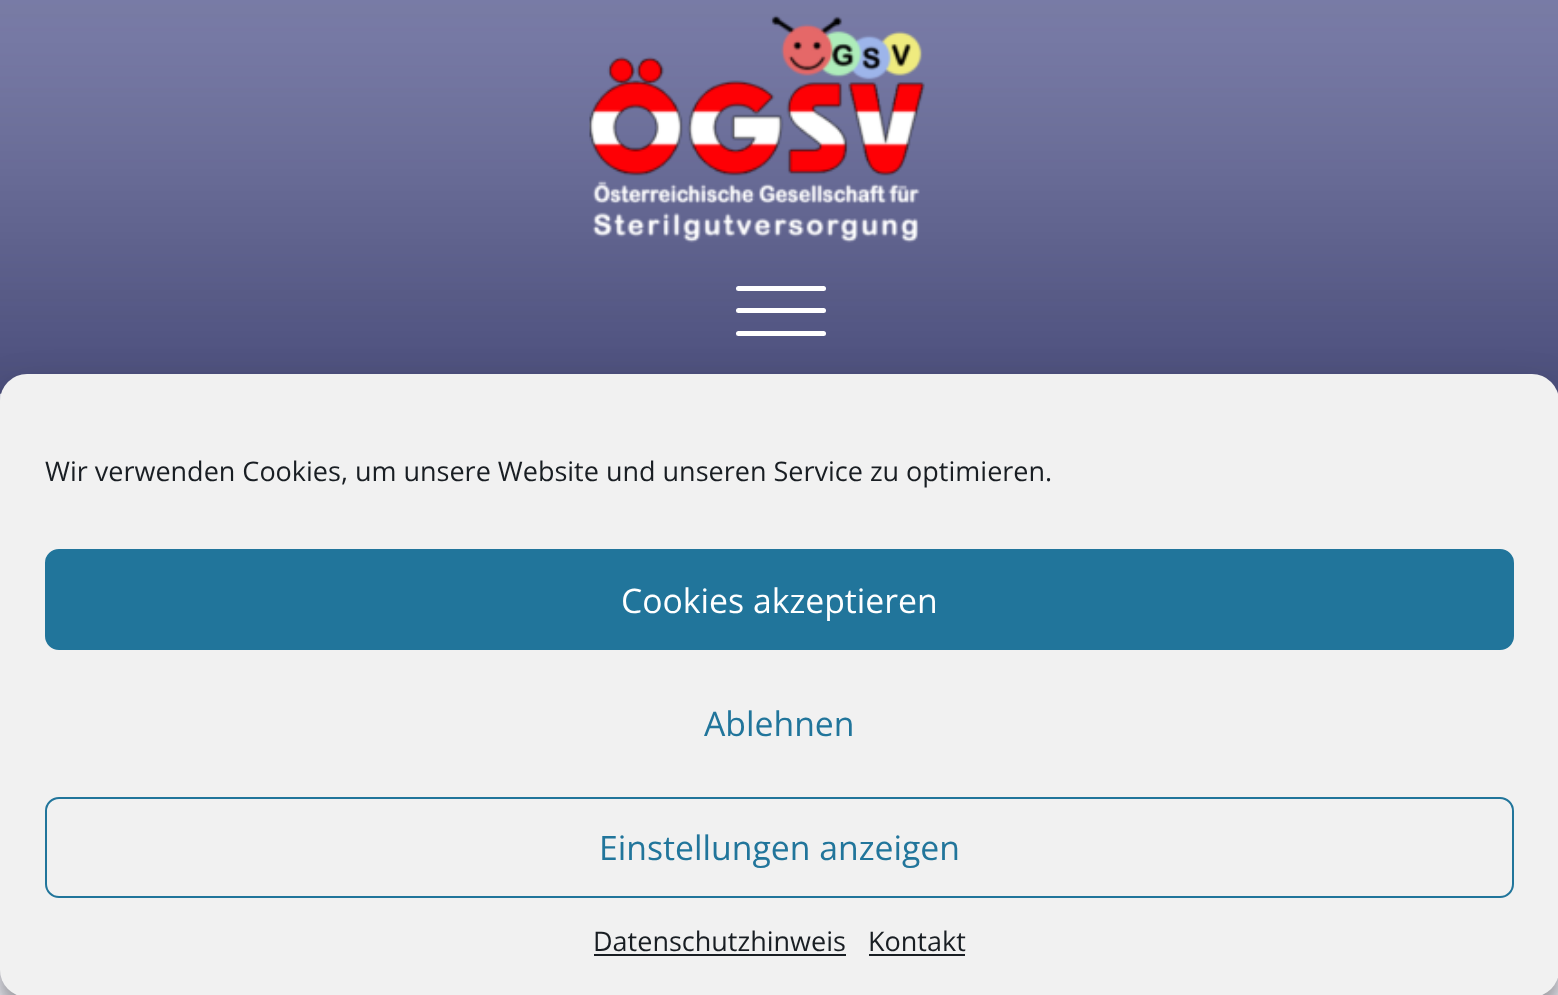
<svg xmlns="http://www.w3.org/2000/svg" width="1558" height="995">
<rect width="100%" height="100%" fill="#f0f0f8"/>
<image x="0" y="393" width="1558" height="8" href="media/3.png"/>
<image x="0" y="0" width="1558" height="394" href="media/1.png"/>
<image x="589" y="15" width="336" height="228" href="media/2.png"/>
<rect x="736" y="286" width="90" height="5" rx="2.5" fill="#fff"/>
<rect x="736" y="308" width="90" height="5" rx="2.5" fill="#fff"/>
<rect x="736" y="331" width="90" height="5" rx="2.5" fill="#fff"/>
<rect y="387" width="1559" height="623" rx="27" fill="#0000003b" filter="blur(7px)"/>
<rect y="396" width="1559" height="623" rx="27" fill="#00000030" filter="blur(22.5px)"/>
<rect y="374" width="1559" height="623" rx="27" fill="#f1f1f1"/>
<text x="45" y="481" style="font-family:Open Sans;font-size:27px;fill:#191e23">Wir verwenden Cookies, um unsere Website und unseren Service zu optimieren.</text>
<rect x="46" y="550" width="1467" height="99" rx="13" fill="#21759b" stroke="#21759b" stroke-width="2"/>
<text x="621" y="613" style="font-family:Open Sans;font-size:33.75px;fill:#fff">Cookies akzeptieren</text>
<text x="704" y="736" style="font-family:Open Sans;font-size:33.75px;fill:#21759b">Ablehnen</text>
<rect x="46" y="798" width="1467" height="99" rx="13" fill="none" stroke="#21759b" stroke-width="2"/>
<text x="599" y="860" style="font-family:Open Sans;font-size:33.75px;fill:#21759b">Einstellungen anzeigen</text>
<text x="593" y="951" style="font-family:Open Sans;font-size:27px;fill:#191e23">Datenschutzhinweis</text>
<rect x="594" y="954" width="252" height="2" fill="#191e23"/>
<text x="868" y="951" style="font-family:Open Sans;font-size:27px;fill:#191e23">Kontakt</text>
<rect x="869" y="954" width="96" height="2" fill="#191e23"/>
</svg>
